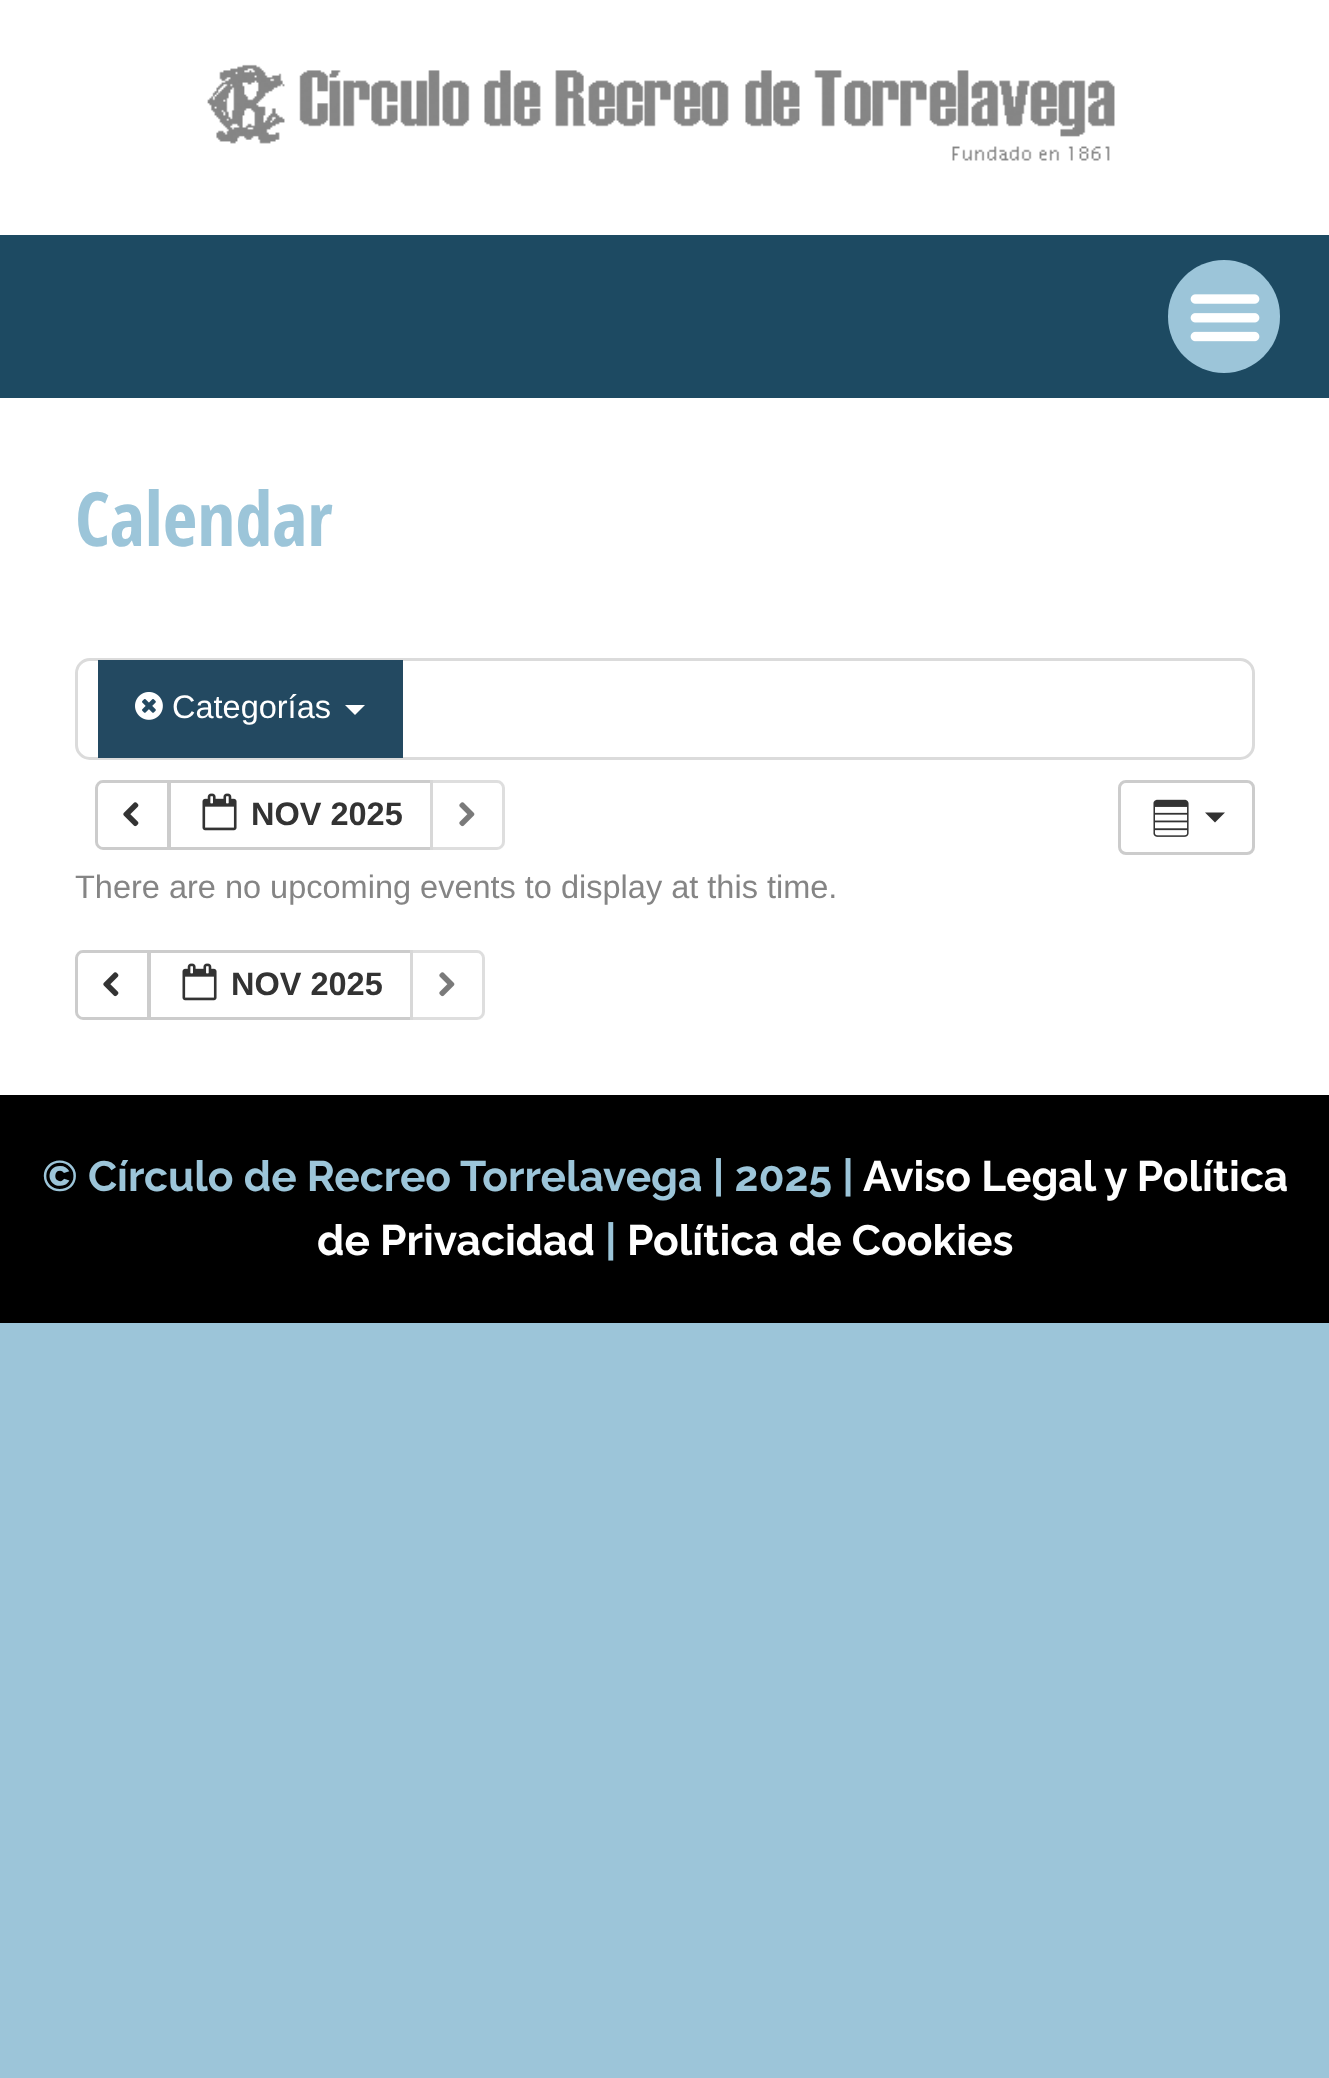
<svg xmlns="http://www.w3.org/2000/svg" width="1329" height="2078">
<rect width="100%" height="100%" fill="#9cc5d9"/>
<rect width="1329" height="235" fill="#fff"/>
<image x="207" y="64" width="908" height="97" href="media/1.png"/>
<rect y="235" width="1329" height="163" fill="#1d4a62"/>
<rect x="1168" y="260" width="112" height="113" rx="56" fill="#9cc5d9"/>
<image x="1190" y="294" width="70" height="48" href="media/2.png"/>
<rect y="398" width="1329" height="697" fill="#fff"/>
<text x="75" y="546" style="font-family:Open Sans Condensed;font-size:75px;font-weight:bold;fill:#9cc5d9">Calendar</text>
<rect x="76.5" y="659.5" width="1177" height="99" rx="13.5" fill="none" stroke="#dbdbdb" stroke-width="3"/>
<rect x="98" y="660" width="305" height="98" fill="#234961"/>
<image x="135" y="692" width="28" height="28" href="media/3.png"/>
<text x="172" y="718" style="font-family:Liberation Sans;font-size:32.5px;fill:#fff">Categorías</text>
<path d="M345 705h20l-10 10z" fill="#fff"/>
<path d="M103 781.5h65.5v67h-65.5c-3.5 0-6.5-3-6.5-6.5v-54c0-3.5 3-6.5 6.5-6.5z" fill="none" stroke="#ccc" stroke-width="3"/>
<image x="123" y="802" width="16" height="25" href="media/4.png"/>
<rect x="169.5" y="781.5" width="262" height="67" fill="none" stroke="#ccc" stroke-width="3"/>
<image x="202" y="793" width="35" height="38" href="media/5.png"/>
<text x="251" y="825" style="font-family:Liberation Sans;font-size:32.5px;font-weight:bold;fill:#333">NOV 2025</text>
<path d="M430 780h67c4.5 0 8 3.5 8 8v54c0 4.5-3.5 8-8 8h-67z" fill="#ffffffa6"/>
<path d="M431.5 781.5h65.5c3.5 0 6.5 3 6.5 6.5v54c0 3.5-3 6.5-6.5 6.5h-65.5z" fill="none" stroke="#cccccca6" stroke-width="3"/>
<image x="459" y="802" width="16" height="25" href="media/6.png"/>
<rect x="1119.5" y="781.5" width="134" height="72" rx="6.5" fill="none" stroke="#ccc" stroke-width="3"/>
<image x="1153" y="799" width="36" height="38" href="media/7.png"/>
<path d="M1205 812.5h20l-10 10z" fill="#333"/>
<text x="75" y="898" style="font-family:Liberation Sans;font-size:32.5px;fill:#858585">There are no upcoming events to display at this time.</text>
<path d="M83 951.5h65.5v67h-65.5c-3.5 0-6.5-3-6.5-6.5v-54c0-3.5 3-6.5 6.5-6.5z" fill="none" stroke="#ccc" stroke-width="3"/>
<image x="103" y="972" width="16" height="25" href="media/4.png"/>
<rect x="149.5" y="951.5" width="262" height="67" fill="none" stroke="#ccc" stroke-width="3"/>
<image x="182" y="963" width="35" height="38" href="media/5.png"/>
<text x="231" y="995" style="font-family:Liberation Sans;font-size:32.5px;font-weight:bold;fill:#333">NOV 2025</text>
<path d="M410 950h67c4.5 0 8 3.5 8 8v54c0 4.5-3.5 8-8 8h-67z" fill="#ffffffa6"/>
<path d="M411.5 951.5h65.5c3.5 0 6.5 3 6.5 6.5v54c0 3.5-3 6.5-6.5 6.5h-65.5z" fill="none" stroke="#cccccca6" stroke-width="3"/>
<image x="439" y="972" width="16" height="25" href="media/6.png"/>
<rect y="1095" width="1329" height="228" fill="#000"/>
<text x="42" y="1191" style="font-family:Raleway;font-size:42.5px;font-weight:bold;fill:#9cc5d9">© Círculo de Recreo Torrelavega | 2025 |</text>
<text x="863" y="1191" style="font-family:Raleway;font-size:42.5px;font-weight:bold;fill:#fff">Aviso Legal y Política</text>
<text x="317" y="1255" style="font-family:Raleway;font-size:42.5px;font-weight:bold;fill:#fff">de Privacidad</text>
<text x="605" y="1255" style="font-family:Raleway;font-size:42.5px;font-weight:bold;fill:#9cc5d9">|</text>
<text x="627" y="1255" style="font-family:Raleway;font-size:42.5px;font-weight:bold;fill:#fff">Política de Cookies</text>
</svg>
